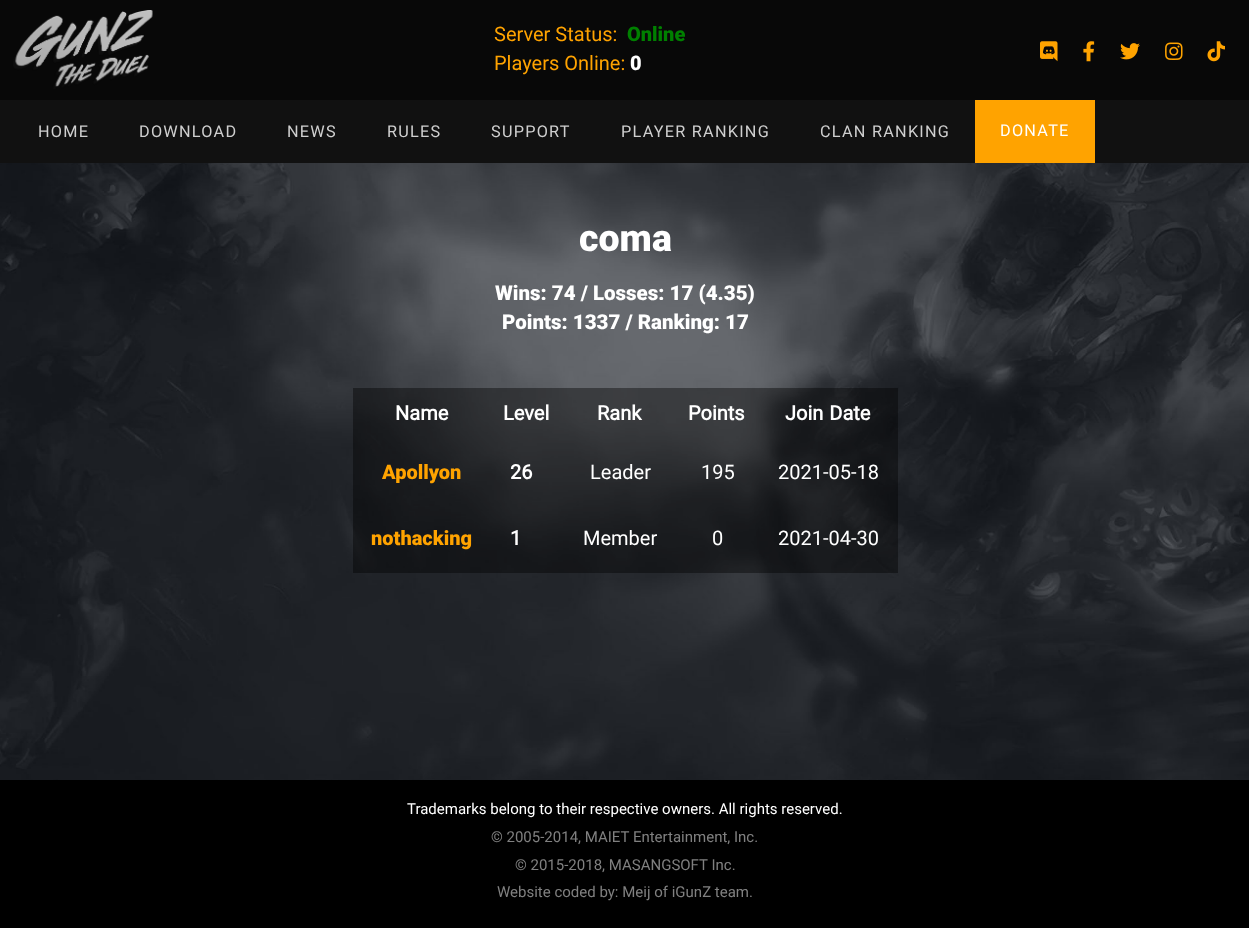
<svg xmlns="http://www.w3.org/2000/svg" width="1249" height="928">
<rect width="100%" height="100%" fill="#fff"/>
<image x="0" y="163" width="1249" height="617" href="media/1.png"/>
<rect width="1249" height="100" fill="#080808"/>
<image x="13" y="10" width="140" height="79" href="media/2.png"/>
<text x="494" y="41" style="font-family:Roboto;font-size:20px;fill:#ffa300">Server Status:</text>
<text x="627" y="41" style="font-family:Roboto;font-size:20px;font-weight:900;fill:#008000">Online</text>
<text x="494" y="70" style="font-family:Roboto;font-size:20px;fill:#ffa300">Players Online:</text>
<text x="630" y="70" style="font-family:Roboto;font-size:20px;font-weight:900;fill:#fff">0</text>
<image x="1040" y="41" width="18" height="21" href="media/3.png"/>
<image x="1083" y="41" width="12" height="21" href="media/4.png"/>
<image x="1120" y="43" width="20" height="17" href="media/5.png"/>
<image x="1165" y="42" width="18" height="18" href="media/6.png"/>
<image x="1207" y="41" width="18" height="21" href="media/7.png"/>
<rect y="100" width="1249" height="63" fill="#111"/>
<text x="38" y="137" style="font-family:Roboto;font-size:16.25px;letter-spacing:1.25px;fill:#cfcfcf">HOME</text>
<text x="139" y="137" style="font-family:Roboto;font-size:16.25px;letter-spacing:1.25px;fill:#cfcfcf">DOWNLOAD</text>
<text x="287" y="137" style="font-family:Roboto;font-size:16.25px;letter-spacing:1.25px;fill:#cfcfcf">NEWS</text>
<text x="387" y="137" style="font-family:Roboto;font-size:16.25px;letter-spacing:1.25px;fill:#cfcfcf">RULES</text>
<text x="491" y="137" style="font-family:Roboto;font-size:16.25px;letter-spacing:1.25px;fill:#cfcfcf">SUPPORT</text>
<text x="621" y="137" style="font-family:Roboto;font-size:16.25px;letter-spacing:1.25px;fill:#cfcfcf">PLAYER RANKING</text>
<text x="820" y="137" style="font-family:Roboto;font-size:16.25px;letter-spacing:1.25px;fill:#cfcfcf">CLAN RANKING</text>
<rect x="975" y="100" width="120" height="63" fill="#ffa300"/>
<text x="1000" y="136" style="font-family:Roboto;font-size:16.25px;letter-spacing:1.25px;fill:#fff">DONATE</text>
<text x="579" y="251" style="font-family:Roboto;font-size:37.5px;font-weight:900;fill:#fff">coma</text>
<text x="495" y="300" style="font-family:Roboto;font-size:20.5px;font-weight:900;fill:#fff">Wins: 74 / Losses: 17 (4.35)</text>
<text x="502" y="329" style="font-family:Roboto;font-size:20.5px;font-weight:900;fill:#fff">Points: 1337 / Ranking: 17</text>
<rect x="353" y="388" width="545" height="185" fill="#00000066"/>
<text x="395" y="420" style="font-family:Roboto;font-size:20px;font-weight:bold;fill:#fff">Name</text>
<text x="503" y="420" style="font-family:Roboto;font-size:20px;font-weight:bold;fill:#fff">Level</text>
<text x="597" y="420" style="font-family:Roboto;font-size:20px;font-weight:bold;fill:#fff">Rank</text>
<text x="688" y="420" style="font-family:Roboto;font-size:20px;font-weight:bold;fill:#fff">Points</text>
<text x="785" y="420" word-spacing="1" style="font-family:Roboto;font-size:20px;font-weight:bold;fill:#fff">Join Date</text>
<text x="382" y="479" style="font-family:Roboto;font-size:20px;font-weight:900;fill:#ffa300">Apollyon</text>
<text x="510" y="479" style="font-family:Roboto;font-size:20px;font-weight:bold;fill:#fff">26</text>
<text x="590" y="479" style="font-family:Roboto;font-size:20px;fill:#fff">Leader</text>
<text x="701" y="479" style="font-family:Roboto;font-size:20px;fill:#fff">195</text>
<text x="778" y="479" style="font-family:Roboto;font-size:20px;fill:#fff">2021-05-18</text>
<text x="371" y="545" style="font-family:Roboto;font-size:20px;font-weight:900;fill:#ffa300">nothacking</text>
<text x="510" y="545" style="font-family:Roboto;font-size:20px;font-weight:bold;fill:#fff">1</text>
<text x="583" y="545" style="font-family:Roboto;font-size:20px;fill:#fff">Member</text>
<text x="712" y="545" style="font-family:Roboto;font-size:20px;fill:#fff">0</text>
<text x="778" y="545" style="font-family:Roboto;font-size:20px;fill:#fff">2021-04-30</text>
<rect y="780" width="1249" height="148" fill="#000"/>
<text x="407" y="814" style="font-family:Roboto;font-size:15px;fill:#fff">Trademarks belong to their respective owners. All rights reserved.</text>
<text x="491" y="842" style="font-family:Roboto;font-size:15px;fill:#808080">© 2005-2014, MAIET Entertainment, Inc.</text>
<text x="515" y="870" style="font-family:Roboto;font-size:15px;fill:#808080">© 2015-2018, MASANGSOFT Inc.</text>
<text x="497" y="897" style="font-family:Roboto;font-size:15px;fill:#808080">Website coded by: Meij of iGunZ team.</text>
</svg>
